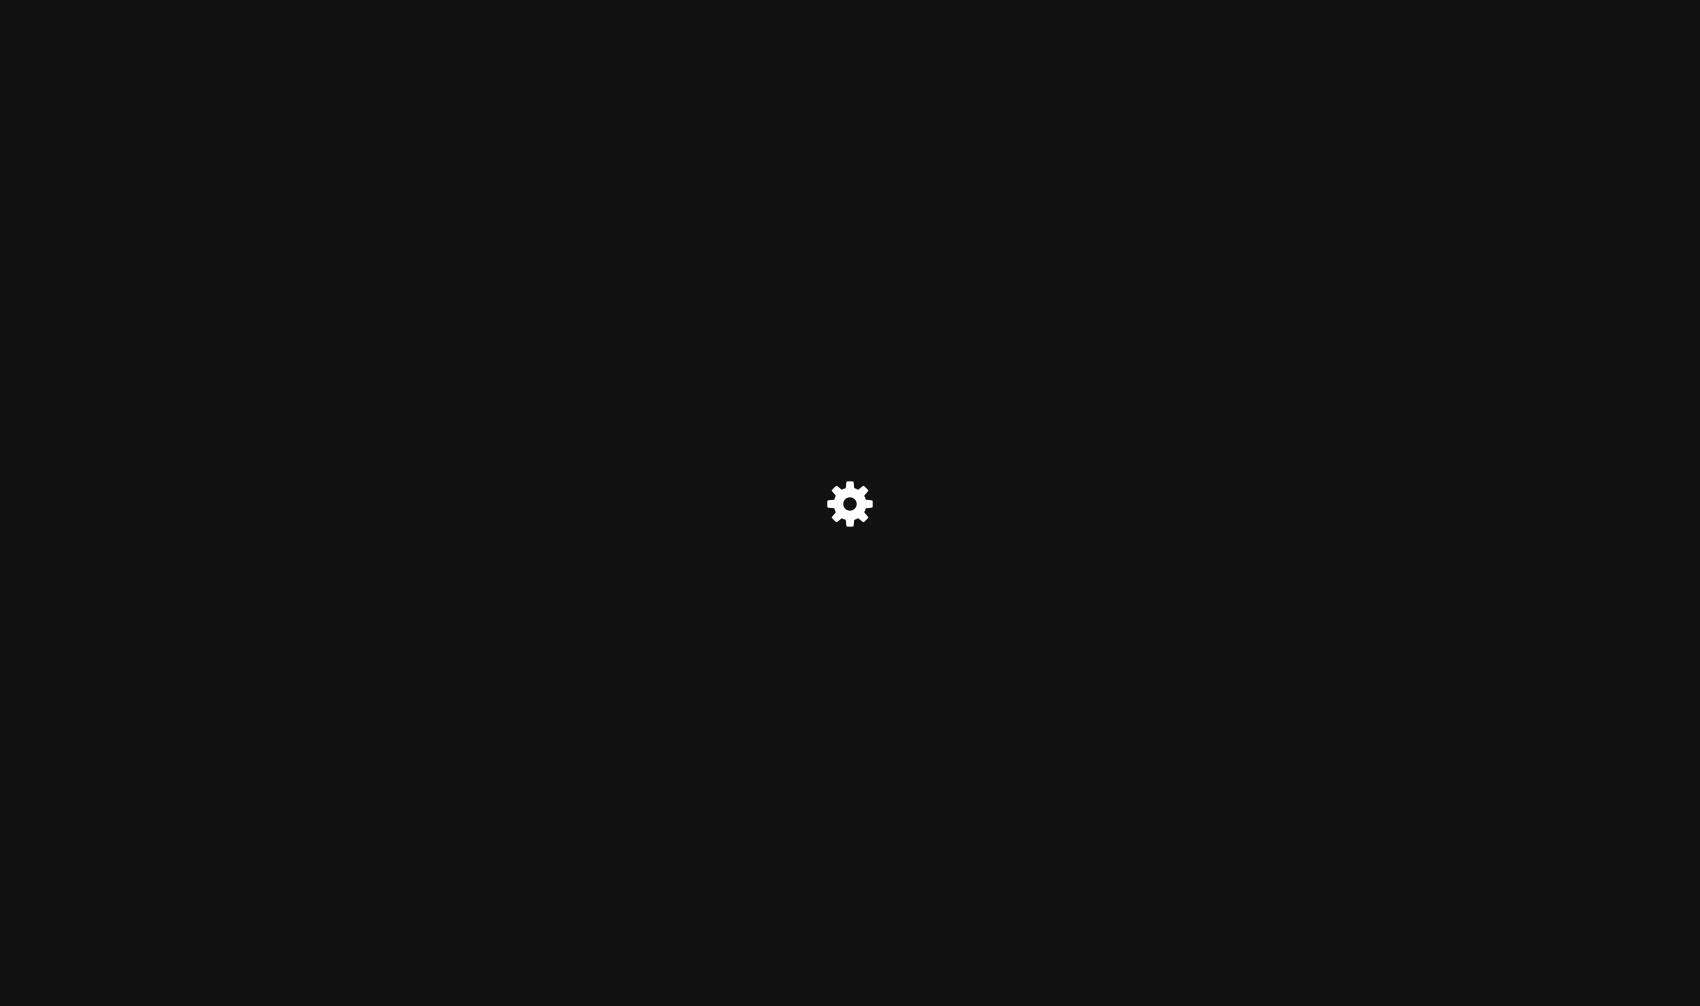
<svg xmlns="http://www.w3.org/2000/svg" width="1700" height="1006">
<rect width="100%" height="100%" fill="#111"/>
<image x="827" y="481" width="46" height="46" href="media/1.png"/>
</svg>
